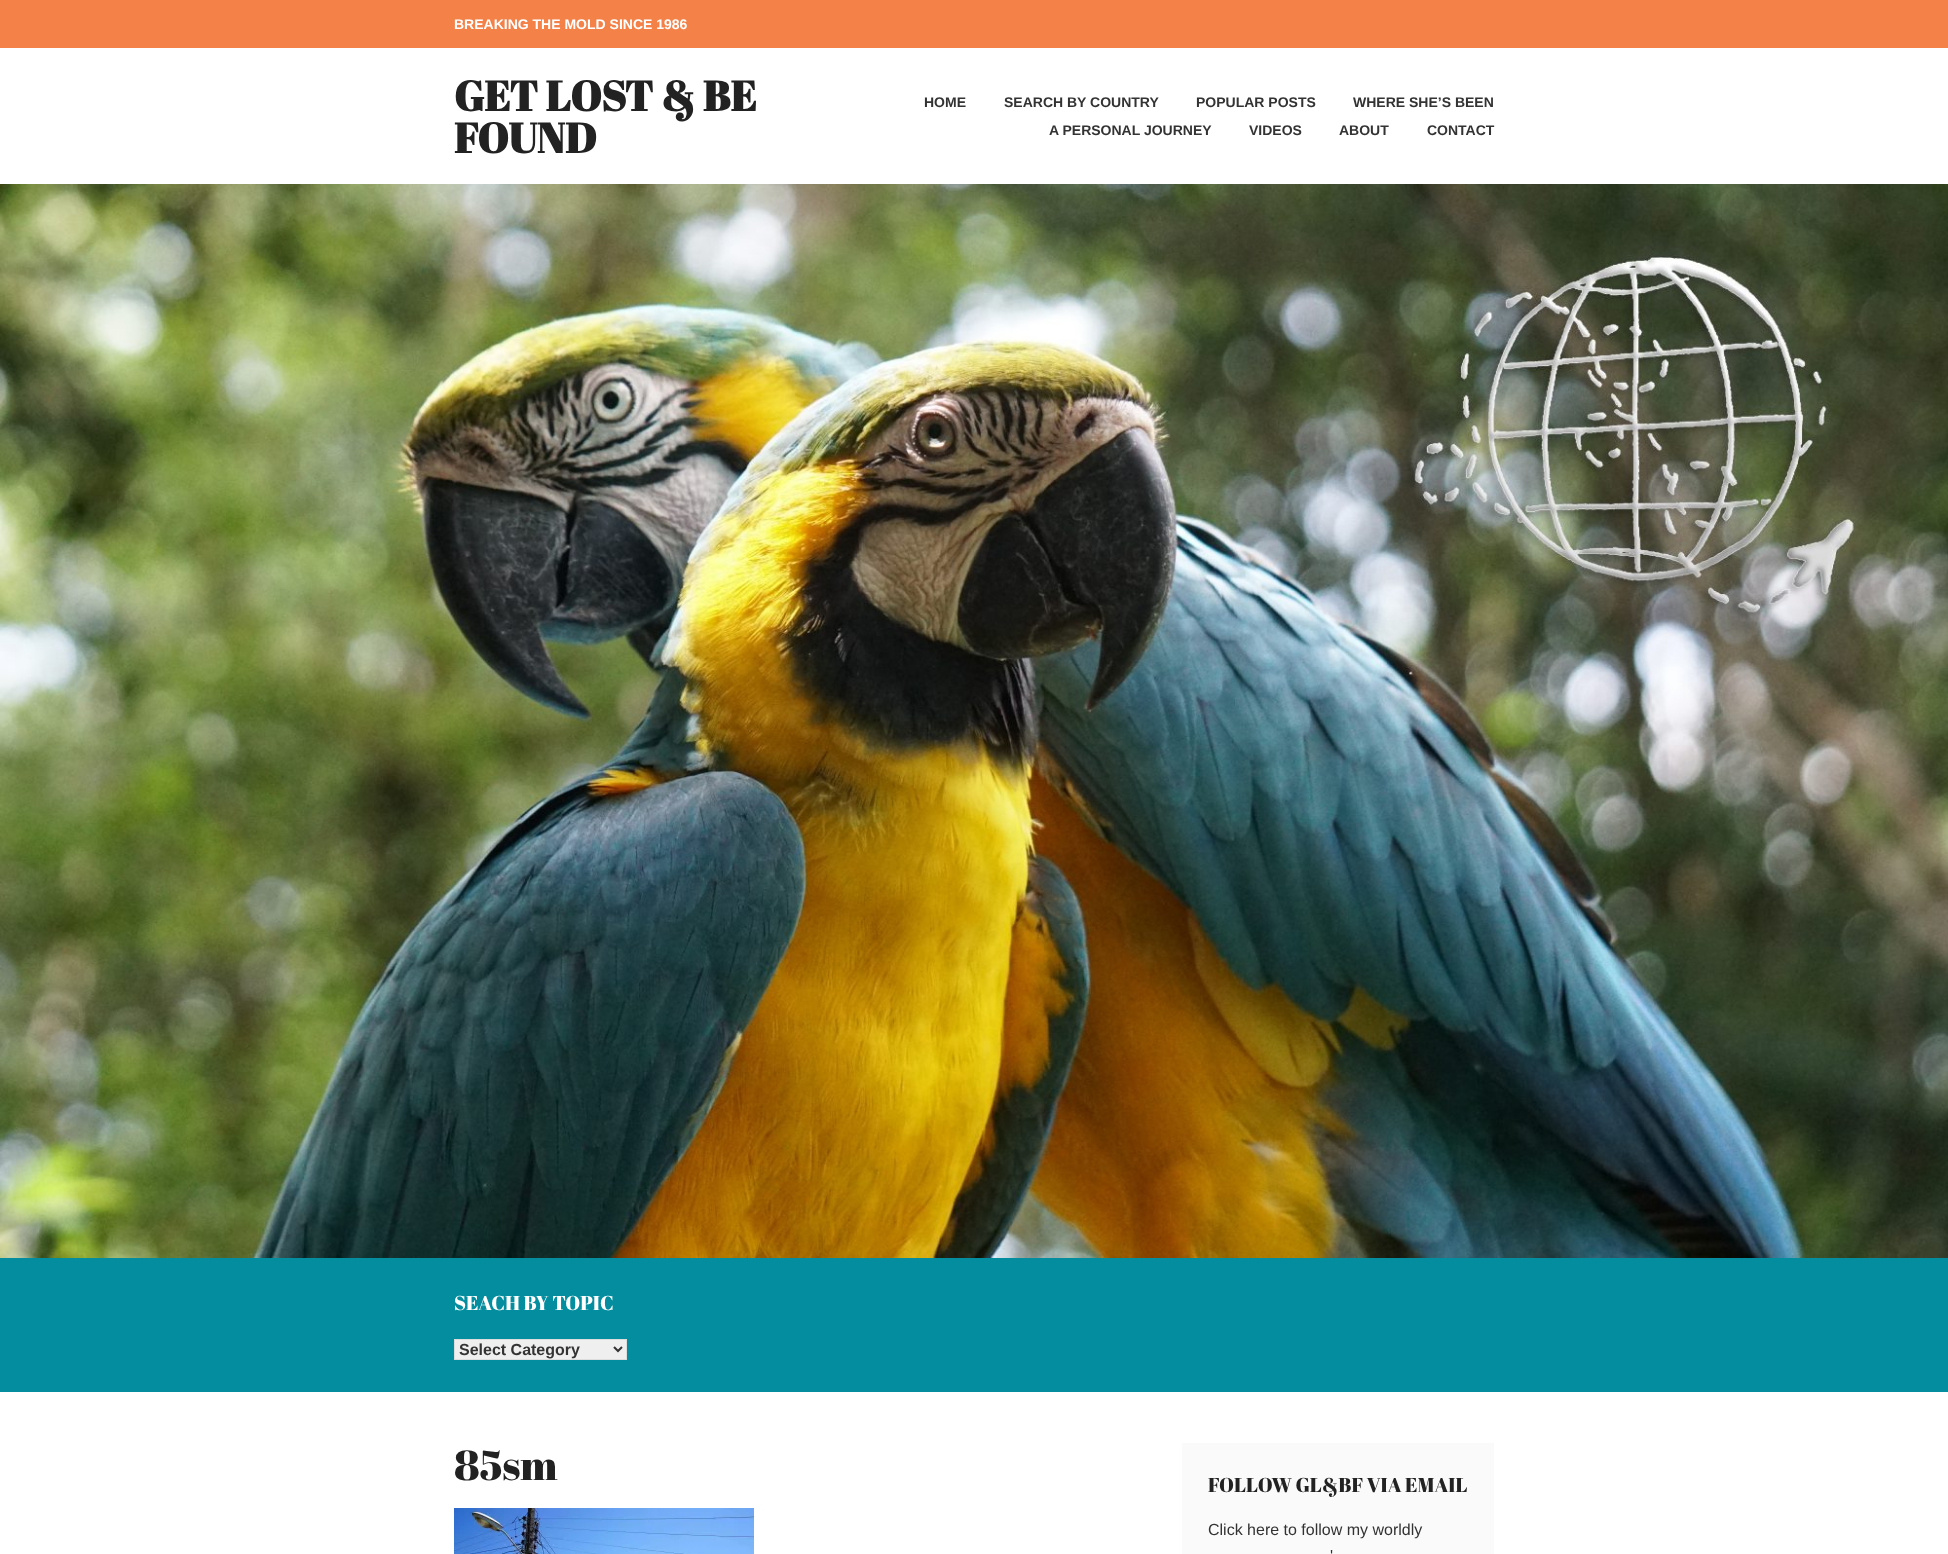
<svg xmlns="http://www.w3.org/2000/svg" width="1948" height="1554">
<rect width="100%" height="100%" fill="#fff"/>
<rect width="1948" height="48" fill="#f38148"/>
<text x="454" y="29" style="font-family:Arimo;font-size:14px;font-weight:bold;fill:#fff">BREAKING THE MOLD SINCE 1986</text>
<text x="454" y="111" style="font-family:Abril Fatface;font-size:42px;font-weight:bold;fill:#222">GET LOST &amp; BE</text>
<text x="454" y="153" style="font-family:Abril Fatface;font-size:42px;font-weight:bold;fill:#222">FOUND</text>
<text x="924" y="107" style="font-family:Arimo;font-size:14px;font-weight:bold;fill:#333">HOME</text>
<text x="1004" y="107" style="font-family:Arimo;font-size:14px;font-weight:bold;fill:#333">SEARCH BY COUNTRY</text>
<text x="1196" y="107" style="font-family:Arimo;font-size:14px;font-weight:bold;fill:#333">POPULAR POSTS</text>
<text x="1353" y="107" style="font-family:Arimo;font-size:14px;font-weight:bold;fill:#333">WHERE SHE’S BEEN</text>
<text x="1049" y="135" style="font-family:Arimo;font-size:14px;font-weight:bold;fill:#333">A PERSONAL JOURNEY</text>
<text x="1249" y="135" style="font-family:Arimo;font-size:14px;font-weight:bold;fill:#333">VIDEOS</text>
<text x="1339" y="135" style="font-family:Arimo;font-size:14px;font-weight:bold;fill:#333">ABOUT</text>
<text x="1427" y="135" style="font-family:Arimo;font-size:14px;font-weight:bold;fill:#333">CONTACT</text>
<image x="0" y="184" width="1948" height="1074" href="media/1.png"/>
<rect y="1258" width="1948" height="134" fill="#038d9f"/>
<text x="454" y="1310" style="font-family:Abril Fatface;font-size:20px;fill:#fff">SEACH BY TOPIC</text>
<rect x="454.5" y="1339.5" width="172" height="20" fill="#efefef" stroke="#ddd"/>
<path d="M614 1347l4 4l4-4" fill="none" stroke="#333" stroke-width="2"/>
<text x="459" y="1355" style="font-family:Arimo;font-size:16px;font-weight:bold;fill:#333">Select Category</text>
<text x="454" y="1480" style="font-family:Abril Fatface;font-size:42px;fill:#222">85sm</text>
<image x="454" y="1508" width="300" height="46" href="media/2.png"/>
<rect x="1182" y="1443" width="312" height="111" fill="#fafafa"/>
<text x="1208" y="1492" style="font-family:Abril Fatface;font-size:20px;fill:#222">FOLLOW GL&amp;BF VIA EMAIL</text>
<text x="1208" y="1535" style="font-family:Arimo;font-size:16px;fill:#333">Click here to follow my worldly</text>
<text x="1330" y="1561" style="font-family:Arimo;font-size:16px;fill:#333">'</text>
</svg>
